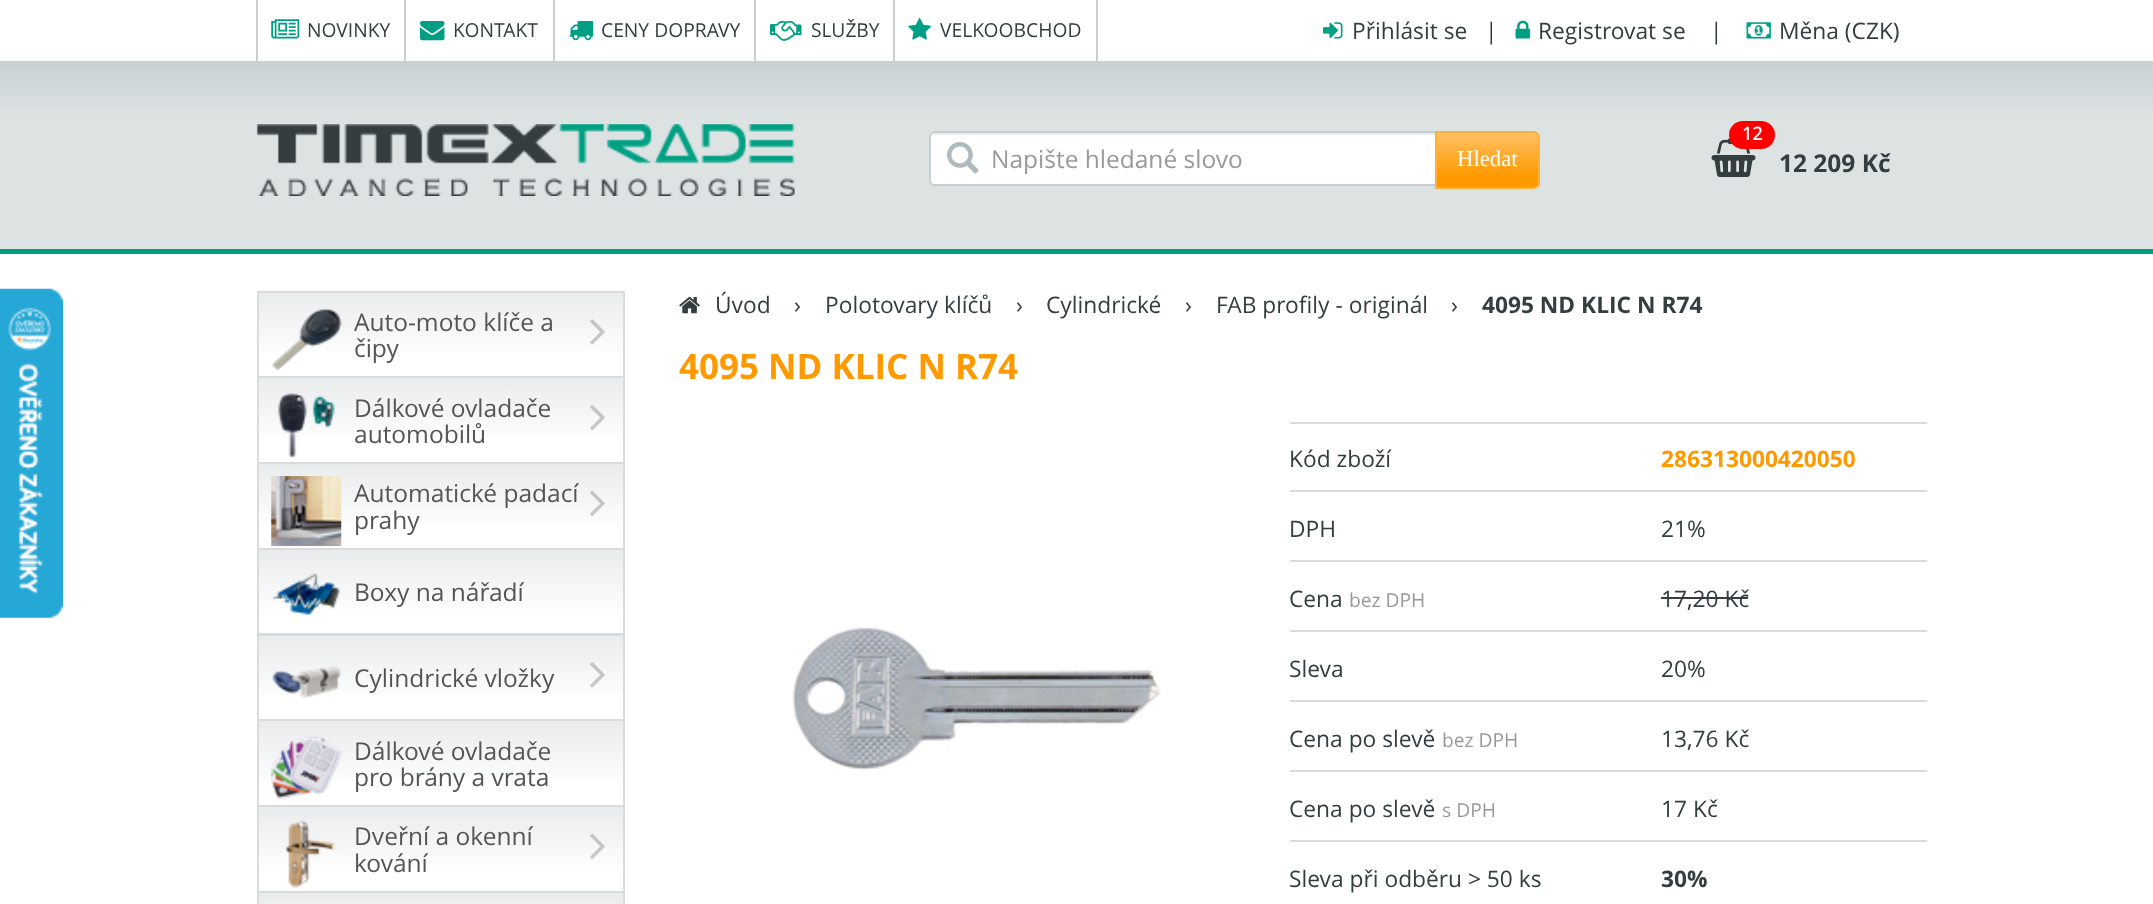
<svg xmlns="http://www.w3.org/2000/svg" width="2153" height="904">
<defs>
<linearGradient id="g1" gradientUnits="userSpaceOnUse" x1="1077" y1="61" x2="1077" y2="249"><stop offset="0" stop-color="#c8d1d2"/><stop offset="0.3" stop-color="#dde2e3"/></linearGradient>
<clipPath id="clip1"><path d="M1435 131h98c4 0 7 3 7 7v44c0 4-3 7-7 7h-98z"/></clipPath>
<linearGradient id="g2" gradientUnits="userSpaceOnUse" x1="1488" y1="133" x2="1488" y2="187"><stop offset="0" stop-color="#ffc164"/><stop offset="0.8" stop-color="#f90"/></linearGradient>
<linearGradient id="g3" gradientUnits="userSpaceOnUse" x1="441" y1="292" x2="441" y2="376"><stop offset="0" stop-color="#e9eced"/><stop offset="0.8" stop-color="#fff"/></linearGradient>
<linearGradient id="g4" gradientUnits="userSpaceOnUse" x1="441" y1="378" x2="441" y2="462"><stop offset="0" stop-color="#e9eced"/><stop offset="0.8" stop-color="#fff"/></linearGradient>
<linearGradient id="g5" gradientUnits="userSpaceOnUse" x1="441" y1="464" x2="441" y2="548"><stop offset="0" stop-color="#e9eced"/><stop offset="0.8" stop-color="#fff"/></linearGradient>
<linearGradient id="g6" gradientUnits="userSpaceOnUse" x1="441" y1="550" x2="441" y2="634"><stop offset="0" stop-color="#e9eced"/><stop offset="0.8" stop-color="#fff"/></linearGradient>
<linearGradient id="g7" gradientUnits="userSpaceOnUse" x1="441" y1="635" x2="441" y2="719"><stop offset="0" stop-color="#e9eced"/><stop offset="0.8" stop-color="#fff"/></linearGradient>
<linearGradient id="g8" gradientUnits="userSpaceOnUse" x1="441" y1="721" x2="441" y2="805"><stop offset="0" stop-color="#e9eced"/><stop offset="0.8" stop-color="#fff"/></linearGradient>
<linearGradient id="g9" gradientUnits="userSpaceOnUse" x1="441" y1="807" x2="441" y2="891"><stop offset="0" stop-color="#e9eced"/><stop offset="0.8" stop-color="#fff"/></linearGradient>
<linearGradient id="g10" gradientUnits="userSpaceOnUse" x1="441" y1="893" x2="441" y2="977"><stop offset="0" stop-color="#e9eced"/><stop offset="0.8" stop-color="#fff"/></linearGradient>
</defs>
<rect width="100%" height="100%" fill="#fff"/>
<rect x="256" width="2" height="61" fill="#cccecf"/>
<image x="271" y="19" width="29" height="20" href="media/1.png"/>
<text x="307" y="37" style="font-family:Open Sans;font-size:19.25px;fill:#343d3f">NOVINKY</text>
<rect x="404" width="2" height="61" fill="#cccecf"/>
<image x="420" y="21" width="25" height="20" href="media/2.png"/>
<text x="453" y="37" style="font-family:Open Sans;font-size:19.25px;fill:#343d3f">KONTAKT</text>
<rect x="553" width="2" height="61" fill="#cccecf"/>
<image x="569" y="21" width="25" height="20" href="media/3.png"/>
<text x="601" y="37" style="font-family:Open Sans;font-size:19.25px;fill:#343d3f">CENY DOPRAVY</text>
<rect x="754" width="2" height="61" fill="#cccecf"/>
<image x="770" y="21" width="32" height="20" href="media/4.png"/>
<text x="811" y="37" style="font-family:Open Sans;font-size:19.25px;fill:#343d3f">SLUŽBY</text>
<rect x="1096" width="2" height="61" fill="#cccecf"/>
<rect x="893" width="2" height="61" fill="#cccecf"/>
<image x="908" y="18" width="23" height="22" href="media/5.png"/>
<text x="940" y="37" style="font-family:Open Sans;font-size:19.25px;fill:#343d3f">VELKOOBCHOD</text>
<image x="1323" y="22" width="20" height="17" href="media/6.png"/>
<text x="1352" y="39" style="font-family:Open Sans;font-size:22.75px;fill:#343d3f">Přihlásit se</text>
<text x="1485" y="39" style="font-family:Open Sans;font-size:22.75px;fill:#343d3f">|</text>
<image x="1515" y="20" width="16" height="19" href="media/7.png"/>
<text x="1538" y="39" style="font-family:Open Sans;font-size:22.75px;fill:#343d3f">Registrovat se</text>
<text x="1710" y="39" style="font-family:Open Sans;font-size:22.75px;fill:#343d3f">|</text>
<image x="1746" y="22" width="25" height="17" href="media/8.png"/>
<text x="1779" y="39" style="font-family:Open Sans;font-size:22.75px;fill:#343d3f">Měna (CZK)</text>
<rect y="61" width="2153" height="188" fill="url(#g1)"/>
<rect y="249" width="2153" height="5" fill="#00a083"/>
<image x="256" y="124" width="539" height="72" href="media/9.png"/>
<path d="M934 131h503v55h-503c-3 0-5-2-5-5v-45c0-3 2-5 5-5z" fill="#fff"/>
<path d="M934 135h501v-2h-500c-3 0-4 2-4 5c0-2 2-3 3-3z" fill="#ececec"/>
<path d="M934 132h502v53h-502c-2 0-4-2-4-4v-45c0-2 2-4 4-4z" fill="none" stroke="#c6cfd0" stroke-width="2"/>
<image x="947" y="142" width="32" height="32" href="media/10.png"/>
<text x="991" y="168" style="font-family:Open Sans;font-size:24.5px;fill:#999">Napište hledané slovo</text>
<g clip-path="url(#clip1)">
<rect x="1437" y="133" width="103" height="54" fill="url(#g2)"/>
</g>
<path d="M1436 132h97c3.5 0 6 2.5 6 6v44c0 3.5-2.5 6-6 6h-97z" fill="none" stroke="#ffb039" stroke-width="2"/>
<text x="1457" y="166" style="font-family:Liberation Serif;font-size:22.75px;fill:#fff">Hledat</text>
<image x="1711" y="138" width="45" height="39" href="media/11.png"/>
<rect x="1729" y="121" width="46" height="28" rx="14" fill="#f00"/>
<text x="1742" y="140" style="font-family:'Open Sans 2';font-size:18px;font-weight:bold;fill:#fff">12</text>
<text x="1779" y="172" style="font-family:Open Sans;font-size:24.5px;font-weight:bold;fill:#343d3f">12 209 Kč</text>
<image x="0" y="288" width="63" height="330" href="media/12.png"/>
<rect x="259" y="293" width="364" height="59" fill="url(#g3)"/>
<rect x="258" y="292" width="366" height="85" fill="none" stroke="#dadbdc" stroke-width="2"/>
<image x="271" y="308" width="71" height="63" href="media/13.png"/>
<text x="354" y="331" style="font-family:Open Sans;font-size:24.5px;fill:#555">Auto-moto klíče a</text>
<text x="354" y="357" style="font-family:Open Sans;font-size:24.5px;fill:#555">čipy</text>
<image x="590" y="319" width="15" height="26" href="media/14.png"/>
<rect x="259" y="378" width="364" height="60" fill="url(#g4)"/>
<rect x="258" y="377" width="366" height="86" fill="none" stroke="#dadbdc" stroke-width="2"/>
<image x="277" y="393" width="58" height="65" href="media/15.png"/>
<text x="354" y="417" style="font-family:Open Sans;font-size:24.5px;fill:#555">Dálkové ovladače</text>
<text x="354" y="443" style="font-family:Open Sans;font-size:24.5px;fill:#555">automobilů</text>
<image x="590" y="405" width="15" height="26" href="media/16.png"/>
<rect x="259" y="464" width="364" height="60" fill="url(#g5)"/>
<rect x="258" y="463" width="366" height="86" fill="none" stroke="#dadbdc" stroke-width="2"/>
<image x="271" y="476" width="71" height="70" href="media/17.png"/>
<text x="354" y="502" style="font-family:Open Sans;font-size:24.5px;fill:#555">Automatické padací</text>
<text x="354" y="529" style="font-family:Open Sans;font-size:24.5px;fill:#555">prahy</text>
<image x="590" y="490" width="15" height="26" href="media/18.png"/>
<rect x="259" y="550" width="364" height="60" fill="url(#g6)"/>
<rect x="258" y="549" width="366" height="85" fill="none" stroke="#dadbdc" stroke-width="2"/>
<image x="272" y="573" width="68" height="43" href="media/19.png"/>
<text x="354" y="601" style="font-family:Open Sans;font-size:24.5px;fill:#555">Boxy na nářadí</text>
<rect x="259" y="636" width="364" height="59" fill="url(#g7)"/>
<rect x="258" y="635" width="366" height="85" fill="none" stroke="#dadbdc" stroke-width="2"/>
<image x="272" y="666" width="70" height="33" href="media/20.png"/>
<text x="354" y="687" style="font-family:Open Sans;font-size:24.5px;fill:#555">Cylindrické vložky</text>
<image x="590" y="662" width="15" height="26" href="media/14.png"/>
<rect x="259" y="721" width="364" height="60" fill="url(#g8)"/>
<rect x="258" y="720" width="366" height="86" fill="none" stroke="#dadbdc" stroke-width="2"/>
<image x="271" y="736" width="71" height="64" href="media/21.png"/>
<text x="354" y="760" style="font-family:Open Sans;font-size:24.5px;fill:#555">Dálkové ovladače</text>
<text x="354" y="786" style="font-family:Open Sans;font-size:24.5px;fill:#555">pro brány a vrata</text>
<rect x="259" y="807" width="364" height="60" fill="url(#g9)"/>
<rect x="258" y="806" width="366" height="86" fill="none" stroke="#dadbdc" stroke-width="2"/>
<image x="285" y="820" width="52" height="68" href="media/22.png"/>
<text x="354" y="845" style="font-family:Open Sans;font-size:24.5px;fill:#555">Dveřní a okenní</text>
<text x="354" y="872" style="font-family:Open Sans;font-size:24.5px;fill:#555">kování</text>
<image x="590" y="833" width="15" height="26" href="media/18.png"/>
<rect x="259" y="893" width="364" height="11" fill="url(#g10)"/>
<rect x="258" y="892" width="366" height="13" fill="none" stroke="#dadbdc" stroke-width="2"/>
<image x="679" y="297" width="21" height="17" href="media/23.png"/>
<text x="715" y="313" style="font-family:Open Sans;font-size:22.75px;fill:#343d3f">Úvod</text>
<text x="794" y="313" style="font-family:Open Sans;font-size:22.75px;fill:#343d3f">›</text>
<text x="825" y="313" style="font-family:Open Sans;font-size:22.75px;fill:#343d3f">Polotovary klíčů</text>
<text x="1016" y="313" style="font-family:Open Sans;font-size:22.75px;fill:#343d3f">›</text>
<text x="1046" y="313" style="font-family:Open Sans;font-size:22.75px;fill:#343d3f">Cylindrické</text>
<text x="1185" y="313" style="font-family:Open Sans;font-size:22.75px;fill:#343d3f">›</text>
<text x="1216" y="313" style="font-family:Open Sans;font-size:22.75px;fill:#343d3f">FAB profily - originál</text>
<text x="1451" y="313" style="font-family:Open Sans;font-size:22.75px;fill:#343d3f">›</text>
<text x="1482" y="313" style="font-family:Open Sans;font-size:22.75px;font-weight:bold;fill:#343d3f">4095 ND KLIC N R74</text>
<text x="679" y="379" style="font-family:Open Sans;font-size:35px;font-weight:bold;fill:#f90">4095 ND KLIC N R74</text>
<image x="792" y="627" width="369" height="144" href="media/24.png"/>
<rect x="1290" y="422" width="637" height="2" fill="#dadbdc"/>
<rect x="1290" y="490" width="637" height="2" fill="#dadbdc"/>
<text x="1289" y="467" style="font-family:Open Sans;font-size:22.75px;fill:#343d3f">Kód zboží</text>
<text x="1661" y="467" style="font-family:Open Sans;font-size:22.75px;font-weight:bold;fill:#f90">286313000420050</text>
<rect x="1290" y="560" width="637" height="2" fill="#dadbdc"/>
<text x="1289" y="537" style="font-family:Open Sans;font-size:22.75px;fill:#343d3f">DPH</text>
<text x="1661" y="537" style="font-family:Open Sans;font-size:22.75px;fill:#343d3f">21%</text>
<rect x="1290" y="630" width="637" height="2" fill="#dadbdc"/>
<text x="1289" y="607" style="font-family:Open Sans;font-size:22.75px;fill:#343d3f">Cena</text>
<text x="1349" y="607" style="font-family:Open Sans;font-size:19.25px;fill:#999">bez DPH</text>
<text x="1661" y="607" style="font-family:Open Sans;font-size:22.75px;fill:#343d3f">17,20 Kč</text>
<rect x="1661" y="597" width="87" height="2" fill="#343d3f"/>
<rect x="1290" y="700" width="637" height="2" fill="#dadbdc"/>
<text x="1289" y="677" style="font-family:Open Sans;font-size:22.75px;fill:#343d3f">Sleva</text>
<text x="1661" y="677" style="font-family:Open Sans;font-size:22.75px;fill:#343d3f">20%</text>
<rect x="1290" y="770" width="637" height="2" fill="#dadbdc"/>
<text x="1289" y="747" style="font-family:Open Sans;font-size:22.75px;fill:#343d3f">Cena po slevě</text>
<text x="1442" y="747" style="font-family:Open Sans;font-size:19.25px;fill:#999">bez DPH</text>
<text x="1661" y="747" style="font-family:Open Sans;font-size:22.75px;fill:#343d3f">13,76 Kč</text>
<rect x="1290" y="840" width="637" height="2" fill="#dadbdc"/>
<text x="1289" y="817" style="font-family:Open Sans;font-size:22.75px;fill:#343d3f">Cena po slevě</text>
<text x="1442" y="817" style="font-family:Open Sans;font-size:19.25px;fill:#999">s DPH</text>
<text x="1661" y="817" style="font-family:Open Sans;font-size:22.75px;fill:#343d3f">17 Kč</text>
<text x="1289" y="887" style="font-family:Open Sans;font-size:22.75px;fill:#343d3f">Sleva při odběru &gt; 50 ks</text>
<text x="1661" y="887" style="font-family:Open Sans;font-size:22.75px;font-weight:bold;fill:#343d3f">30%</text>
</svg>
